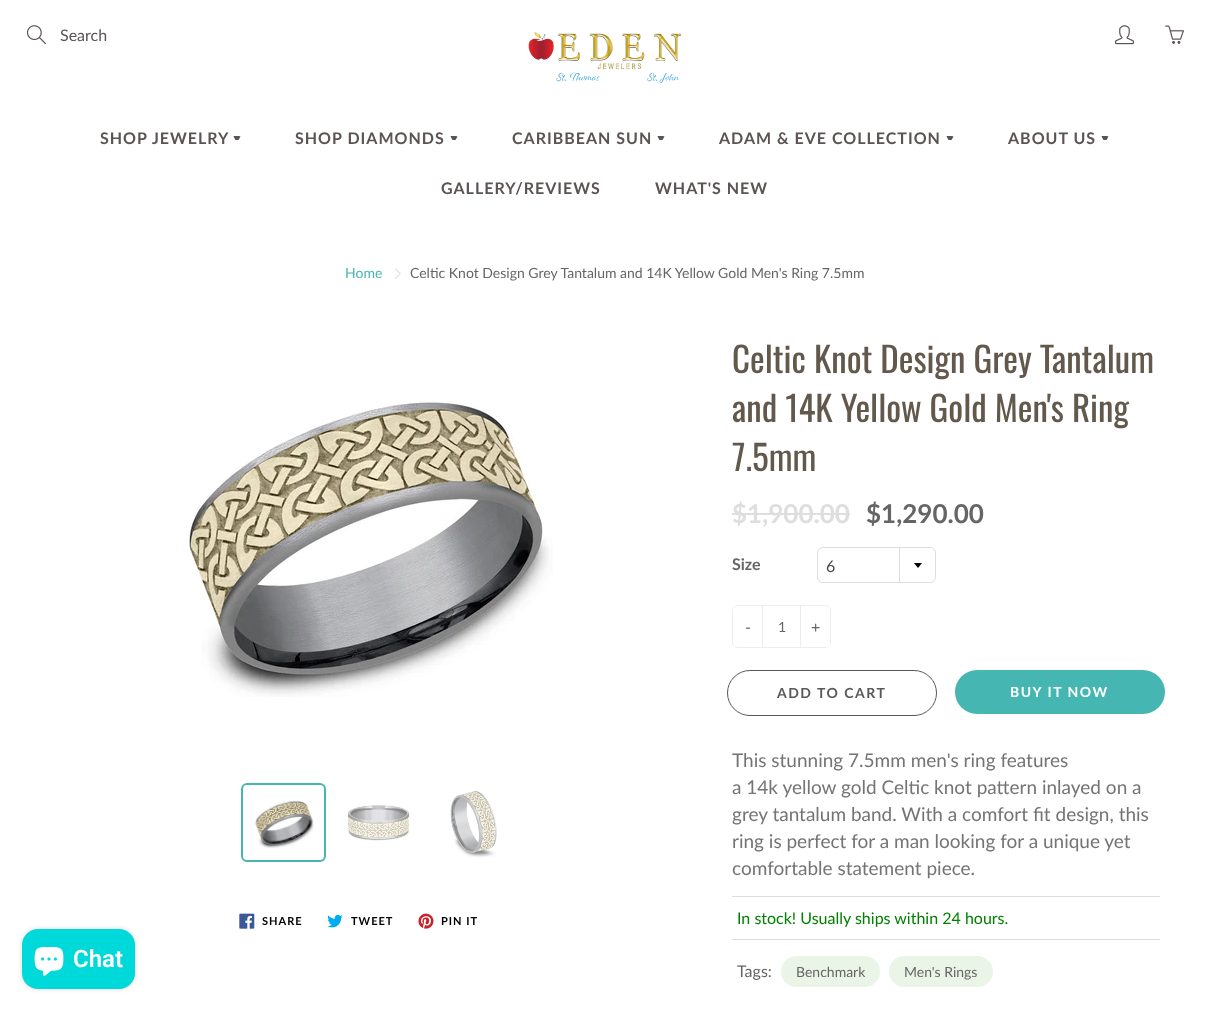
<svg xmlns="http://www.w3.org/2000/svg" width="1209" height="1010">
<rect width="100%" height="100%" fill="#fff"/>
<image x="26" y="25" width="20" height="20" href="media/1.png"/>
<text x="60" y="41" style="font-family:Lato;font-size:16px;fill:#5c5353">Search</text>
<image x="528" y="32" width="153" height="51" href="media/2.png"/>
<image x="1115" y="25" width="19" height="20" href="media/3.png"/>
<image x="1165" y="25" width="19" height="19" href="media/4.png"/>
<text x="100" y="144" style="font-family:Lato;font-size:16px;font-weight:bold;letter-spacing:1px;fill:#5c5353">SHOP JEWELRY</text>
<path d="M234 136l-.5 .5l2 3.5h3l2-3.5l-1.5-.5z" fill="#5c5353"/>
<text x="295" y="144" style="font-family:Lato;font-size:16px;font-weight:bold;letter-spacing:1px;fill:#5c5353">SHOP DIAMONDS</text>
<path d="M451 136l-.5 .5l2 3.5h3l2-3.5l-1.5-.5z" fill="#5c5353"/>
<text x="512" y="144" style="font-family:Lato;font-size:16px;font-weight:bold;letter-spacing:1px;fill:#5c5353">CARIBBEAN SUN</text>
<path d="M658 136l-.5 .5l2 3.5h3l2-3.5l-1.5-.5z" fill="#5c5353"/>
<text x="719" y="144" style="font-family:Lato;font-size:16px;font-weight:bold;letter-spacing:1px;fill:#5c5353">ADAM &amp; EVE COLLECTION</text>
<path d="M947 136l-.5 .5l2 3.5h3l2-3.5l-1.5-.5z" fill="#5c5353"/>
<text x="1008" y="144" style="font-family:Lato;font-size:16px;font-weight:bold;letter-spacing:1px;fill:#5c5353">ABOUT US</text>
<path d="M1102 136l-.5 .5l2 3.5h3l2-3.5l-1.5-.5z" fill="#5c5353"/>
<text x="441" y="194" style="font-family:Lato;font-size:16px;font-weight:bold;letter-spacing:1px;fill:#5c5353">GALLERY/REVIEWS</text>
<text x="655" y="194" style="font-family:Lato;font-size:16px;font-weight:bold;letter-spacing:1px;fill:#5c5353">WHAT'S NEW</text>
<text x="345" y="278" style="font-family:Lato;font-size:14px;fill:#46b6b3">Home</text>
<image x="395" y="268" width="6" height="11" href="media/5.png"/>
<text x="410" y="278" style="font-family:Lato;font-size:14px;fill:#666565">Celtic Knot Design Grey Tantalum and 14K Yellow Gold Men's Ring 7.5mm</text>
<image x="189" y="401" width="364" height="296" href="media/6.png"/>
<rect x="242" y="784" width="83" height="77" rx="5" fill="none" stroke="#46b6b3" stroke-width="2"/>
<image x="255" y="800" width="59" height="49" href="media/7.png"/>
<image x="347" y="805" width="63" height="36" href="media/8.png"/>
<image x="450" y="791" width="47" height="67" href="media/9.png"/>
<image x="239" y="913" width="16" height="16" href="media/10.png"/>
<text x="262" y="925" style="font-family:Lato;font-size:11px;font-weight:bold;letter-spacing:1px;fill:#000">SHARE</text>
<image x="327" y="914" width="16" height="14" href="media/11.png"/>
<text x="351" y="925" style="font-family:Lato;font-size:11px;font-weight:bold;letter-spacing:1px;fill:#000">TWEET</text>
<image x="418" y="913" width="16" height="16" href="media/12.png"/>
<text x="441" y="925" style="font-family:Lato;font-size:11px;font-weight:bold;letter-spacing:1px;fill:#000">PIN IT</text>
<text x="732" y="373" style="font-family:Oswald;font-size:35px;fill:#63584c">Celtic Knot Design Grey Tantalum</text>
<text x="732" y="422" style="font-family:Oswald;font-size:35px;fill:#63584c">and 14K Yellow Gold Men's Ring</text>
<text x="732" y="471" style="font-family:Oswald;font-size:35px;fill:#63584c">7.5mm</text>
<text x="732" y="523" style="font-family:Lato;font-size:26px;font-weight:bold;fill:#dedede">$1,900.00</text>
<rect x="732" y="513" width="118" height="2" fill="#dedede"/>
<text x="866" y="523" style="font-family:Lato;font-size:26px;font-weight:bold;fill:#666565">$1,290.00</text>
<text x="732" y="570" style="font-family:Lato;font-size:16px;font-weight:bold;fill:#666565">Size</text>
<rect x="817.5" y="547.5" width="118" height="35" rx="5.5" fill="none" stroke="#ddd"/>
<text x="826" y="572" style="font-family:Lato;font-size:16px;fill:#444">6</text>
<path d="M899 548h30c3.5 0 6 2.5 6 6v22c0 3.5-2.5 6-6 6h-30z" fill="#fff"/>
<rect x="899" y="548" width="1" height="34" fill="#ddd"/>
<path d="M914 563h8l-4 5z" fill="#000"/>
<rect x="732.5" y="605.5" width="98" height="42" rx="5.5" fill="none" stroke="#ededed"/>
<path d="M738 606h24v41h-24c-3 0-5-2-5-5v-31c0-3 2-5 5-5z" fill="#fff"/>
<text x="745" y="633" style="font-family:Lato;font-size:16px;fill:#666565">-</text>
<rect x="800" y="606" width="1" height="41" fill="#ededed"/>
<rect x="762" y="606" width="1" height="41" fill="#ededed"/>
<text x="778" y="632" style="font-family:Lato;font-size:14px;fill:#666565">1</text>
<path d="M801 606h24c3 0 5 2 5 5v31c0 3-2 5-5 5h-24z" fill="#fff"/>
<text x="811" y="633" style="font-family:Lato;font-size:16px;fill:#666565">+</text>
<rect x="727.5" y="670.5" width="209" height="45" rx="22.5" fill="none" stroke="#595959"/>
<text x="777" y="698" style="font-family:Lato;font-size:14px;font-weight:bold;letter-spacing:1.5px;fill:#595959">ADD TO CART</text>
<rect x="955" y="670" width="210" height="44" rx="22" fill="#46b6b3"/>
<text x="1010" y="697" style="font-family:Lato;font-size:14px;font-weight:bold;letter-spacing:1.5px;fill:#fff">BUY IT NOW</text>
<text x="732" y="767" style="font-family:Lato;font-size:19px;fill:#757474">This stunning 7.5mm men's ring features</text>
<text x="732" y="794" style="font-family:Lato;font-size:19px;fill:#757474">a 14k yellow gold Celtic knot pattern inlayed on a</text>
<text x="732" y="821" style="font-family:Lato;font-size:19px;fill:#757474">grey tantalum band. With a comfort fit design, this</text>
<text x="732" y="848" style="font-family:Lato;font-size:19px;fill:#757474">ring is perfect for a man looking for a unique yet</text>
<text x="732" y="875" style="font-family:Lato;font-size:19px;fill:#757474">comfortable statement piece.</text>
<rect x="732" y="896" width="428" height="1" fill="#ddd"/>
<text x="737" y="924" style="font-family:Lato;font-size:16px;fill:#008000">In stock! Usually ships within 24 hours.</text>
<rect x="732" y="939" width="428" height="1" fill="#ddd"/>
<text x="737" y="977" style="font-family:Lato;font-size:16px;fill:#666565">Tags:</text>
<rect x="781" y="956" width="99" height="31" rx="15.5" fill="#eaf5e8"/>
<text x="796" y="977" style="font-family:Lato;font-size:14px;fill:#666565">Benchmark</text>
<rect x="889" y="956" width="104" height="31" rx="15.5" fill="#eaf5e8"/>
<text x="904" y="977" style="font-family:Lato;font-size:14px;fill:#666565">Men's Rings</text>
<rect x="22" y="929" width="113" height="60" rx="16" fill="#00000026" filter="blur(2.5px)"/>
<rect x="22" y="929" width="113" height="60" rx="16" fill="#00d9d9"/>
<image x="34" y="947" width="30" height="29" href="media/13.png"/>
<text x="73" y="967" style="font-family:Roboto;font-size:24px;font-weight:600;fill:#fff">Chat</text>
</svg>
